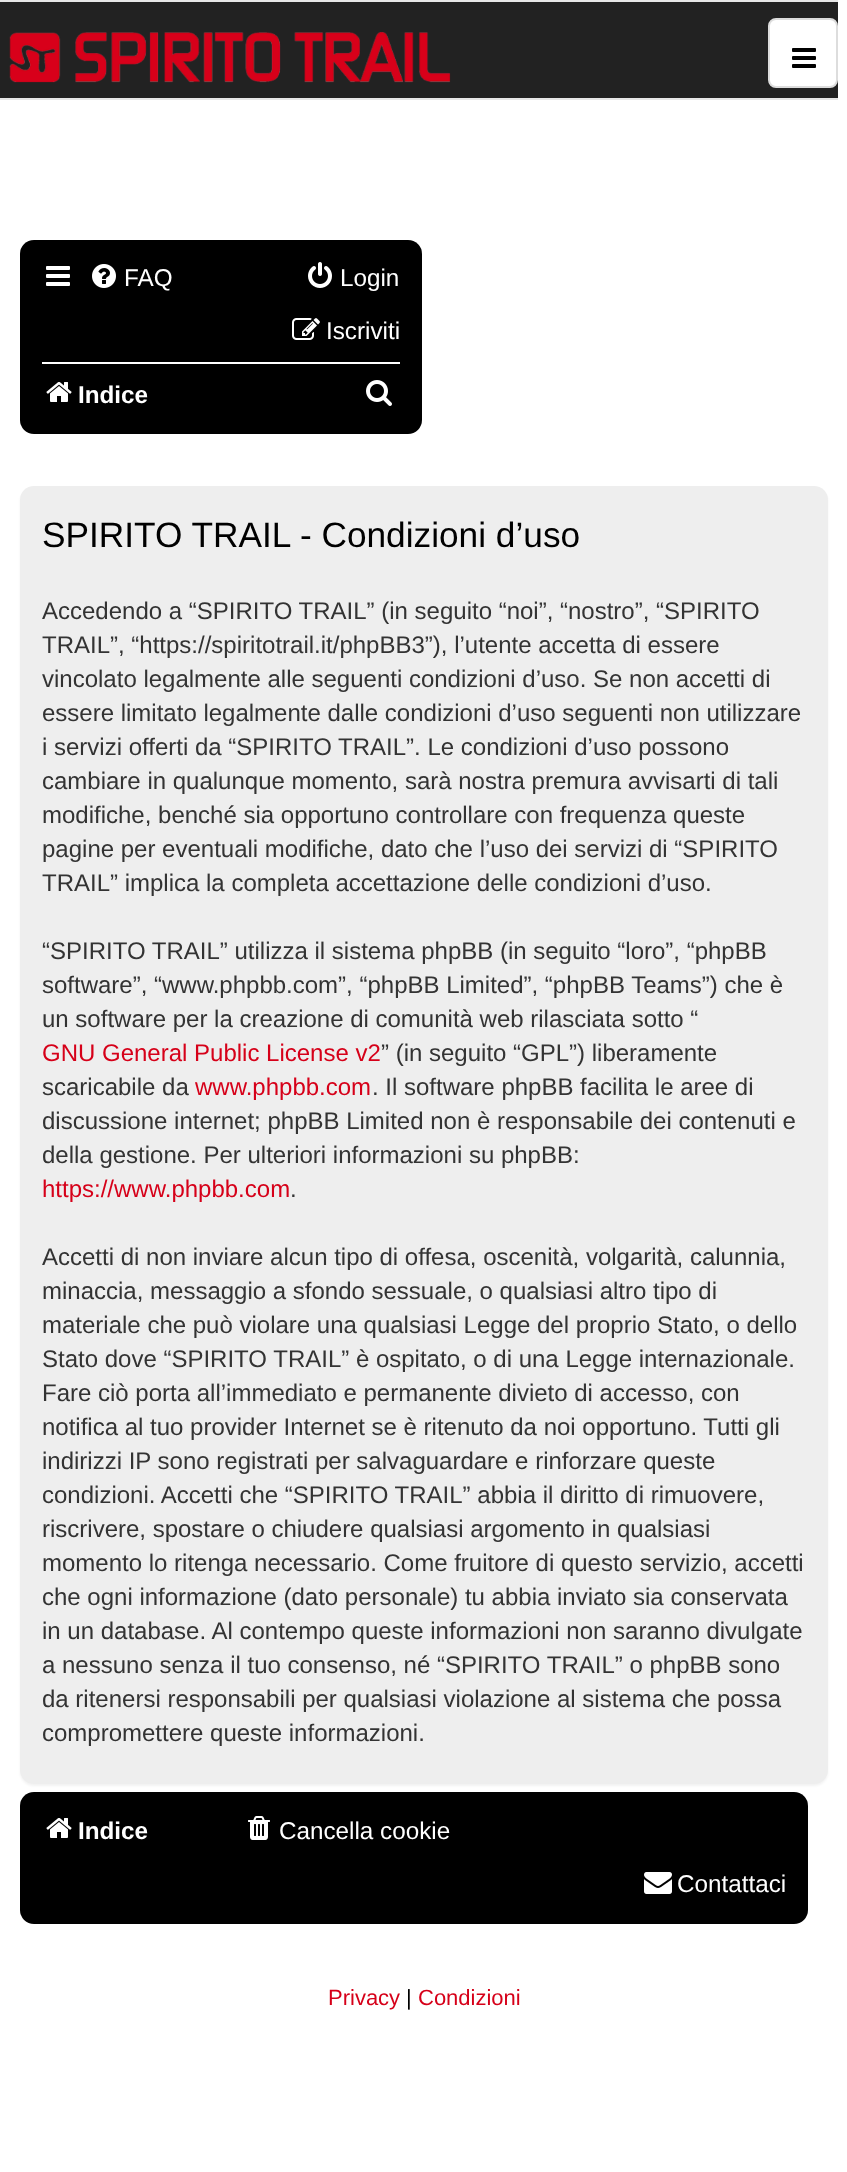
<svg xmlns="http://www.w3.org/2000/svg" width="847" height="2172">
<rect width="100%" height="100%" fill="#fff"/>
<rect y="2" width="838" height="96" fill="#222"/>
<image x="9" y="32" width="442" height="51" href="media/1.png"/>
<rect width="838" height="2" fill="#e7e7e7"/>
<rect y="98" width="838" height="2" fill="#e7e7e7"/>
<rect x="769" y="19" width="68" height="68" rx="7" fill="#fff" stroke="#ddd" stroke-width="2"/>
<image x="792" y="48" width="24" height="20" href="media/2.png"/>
<rect x="20" y="240" width="402" height="194" rx="14" fill="#000"/>
<image x="46" y="266" width="24" height="20" href="media/3.png"/>
<image x="92" y="264" width="24" height="24" href="media/4.png"/>
<text x="124" y="286" style="font-family:Liberation Sans;font-size:24.25px;fill:#fff">FAQ</text>
<image x="308" y="262" width="24" height="26" href="media/5.png"/>
<text x="340" y="286" style="font-family:Liberation Sans;font-size:24.25px;fill:#fff">Login</text>
<image x="292" y="318" width="28" height="22" href="media/6.png"/>
<text x="326" y="339" style="font-family:Liberation Sans;font-size:24.25px;fill:#fff">Iscriviti</text>
<rect x="42" y="362" width="358" height="2" fill="#fff"/>
<image x="46" y="382" width="26" height="20" href="media/7.png"/>
<text x="78" y="403" style="font-family:Liberation Sans;font-size:24.25px;font-weight:bold;fill:#fff">Indice</text>
<image x="366" y="380" width="26" height="26" href="media/8.png"/>
<rect x="20" y="488" width="808" height="1298" rx="14" fill="#0000000d" filter="blur(1px)"/>
<rect x="20" y="486" width="808" height="1298" rx="14" fill="#eee"/>
<text x="42" y="547" style="font-family:Liberation Sans;font-size:35.25px;fill:#000">SPIRITO TRAIL - Condizioni d’uso</text>
<text x="42" y="619" style="font-family:Liberation Sans;font-size:24px;fill:#333">Accedendo a “SPIRITO TRAIL” (in seguito “noi”, “nostro”, “SPIRITO</text>
<text x="42" y="653" style="font-family:Liberation Sans;font-size:24px;fill:#333">TRAIL”, “https://spiritotrail.it/phpBB3”), l’utente accetta di essere</text>
<text x="42" y="687" style="font-family:Liberation Sans;font-size:24px;fill:#333">vincolato legalmente alle seguenti condizioni d’uso. Se non accetti di</text>
<text x="42" y="721" style="font-family:Liberation Sans;font-size:24px;fill:#333">essere limitato legalmente dalle condizioni d’uso seguenti non utilizzare</text>
<text x="42" y="755" style="font-family:Liberation Sans;font-size:24px;fill:#333">i servizi offerti da “SPIRITO TRAIL”. Le condizioni d’uso possono</text>
<text x="42" y="789" style="font-family:Liberation Sans;font-size:24px;fill:#333">cambiare in qualunque momento, sarà nostra premura avvisarti di tali</text>
<text x="42" y="823" style="font-family:Liberation Sans;font-size:24px;fill:#333">modifiche, benché sia opportuno controllare con frequenza queste</text>
<text x="42" y="857" style="font-family:Liberation Sans;font-size:24px;fill:#333">pagine per eventuali modifiche, dato che l’uso dei servizi di “SPIRITO</text>
<text x="42" y="891" style="font-family:Liberation Sans;font-size:24px;fill:#333">TRAIL” implica la completa accettazione delle condizioni d’uso.</text>
<text x="42" y="959" style="font-family:Liberation Sans;font-size:24px;fill:#333">“SPIRITO TRAIL” utilizza il sistema phpBB (in seguito “loro”, “phpBB</text>
<text x="42" y="993" style="font-family:Liberation Sans;font-size:24px;fill:#333">software”, “www.phpbb.com”, “phpBB Limited”, “phpBB Teams”) che è</text>
<text x="42" y="1027" style="font-family:Liberation Sans;font-size:24px;fill:#333">un software per la creazione di comunità web rilasciata sotto “</text>
<text x="42" y="1061" style="font-family:Liberation Sans;font-size:24px;fill:#d60019">GNU General Public License v2</text>
<text x="381" y="1061" style="font-family:Liberation Sans;font-size:24px;fill:#333">” (in seguito “GPL”) liberamente</text>
<text x="42" y="1095" style="font-family:Liberation Sans;font-size:24px;fill:#333">scaricabile da</text>
<text x="195" y="1095" style="font-family:Liberation Sans;font-size:24px;fill:#d60019">www.phpbb.com</text>
<text x="372" y="1095" style="font-family:Liberation Sans;font-size:24px;fill:#333">. Il software phpBB facilita le aree di</text>
<text x="42" y="1129" style="font-family:Liberation Sans;font-size:24px;fill:#333">discussione internet; phpBB Limited non è responsabile dei contenuti e</text>
<text x="42" y="1163" style="font-family:Liberation Sans;font-size:24px;fill:#333">della gestione. Per ulteriori informazioni su phpBB:</text>
<text x="42" y="1197" style="font-family:Liberation Sans;font-size:24px;fill:#d60019">https://www.phpbb.com</text>
<text x="290" y="1197" style="font-family:Liberation Sans;font-size:24px;fill:#333">.</text>
<text x="42" y="1265" style="font-family:Liberation Sans;font-size:24px;fill:#333">Accetti di non inviare alcun tipo di offesa, oscenità, volgarità, calunnia,</text>
<text x="42" y="1299" style="font-family:Liberation Sans;font-size:24px;fill:#333">minaccia, messaggio a sfondo sessuale, o qualsiasi altro tipo di</text>
<text x="42" y="1333" style="font-family:Liberation Sans;font-size:24px;fill:#333">materiale che può violare una qualsiasi Legge del proprio Stato, o dello</text>
<text x="42" y="1367" style="font-family:Liberation Sans;font-size:24px;fill:#333">Stato dove “SPIRITO TRAIL” è ospitato, o di una Legge internazionale.</text>
<text x="42" y="1401" style="font-family:Liberation Sans;font-size:24px;fill:#333">Fare ciò porta all’immediato e permanente divieto di accesso, con</text>
<text x="42" y="1435" style="font-family:Liberation Sans;font-size:24px;fill:#333">notifica al tuo provider Internet se è ritenuto da noi opportuno. Tutti gli</text>
<text x="42" y="1469" style="font-family:Liberation Sans;font-size:24px;fill:#333">indirizzi IP sono registrati per salvaguardare e rinforzare queste</text>
<text x="42" y="1503" style="font-family:Liberation Sans;font-size:24px;fill:#333">condizioni. Accetti che “SPIRITO TRAIL” abbia il diritto di rimuovere,</text>
<text x="42" y="1537" style="font-family:Liberation Sans;font-size:24px;fill:#333">riscrivere, spostare o chiudere qualsiasi argomento in qualsiasi</text>
<text x="42" y="1571" style="font-family:Liberation Sans;font-size:24px;fill:#333">momento lo ritenga necessario. Come fruitore di questo servizio, accetti</text>
<text x="42" y="1605" style="font-family:Liberation Sans;font-size:24px;fill:#333">che ogni informazione (dato personale) tu abbia inviato sia conservata</text>
<text x="42" y="1639" style="font-family:Liberation Sans;font-size:24px;fill:#333">in un database. Al contempo queste informazioni non saranno divulgate</text>
<text x="42" y="1673" style="font-family:Liberation Sans;font-size:24px;fill:#333">a nessuno senza il tuo consenso, né “SPIRITO TRAIL” o phpBB sono</text>
<text x="42" y="1707" style="font-family:Liberation Sans;font-size:24px;fill:#333">da ritenersi responsabili per qualsiasi violazione al sistema che possa</text>
<text x="42" y="1741" style="font-family:Liberation Sans;font-size:24px;fill:#333">compromettere queste informazioni.</text>
<rect x="20" y="1792" width="788" height="132" rx="14" fill="#000"/>
<image x="46" y="1818" width="26" height="20" href="media/7.png"/>
<text x="78" y="1839" style="font-family:Liberation Sans;font-size:24.25px;font-weight:bold;fill:#fff">Indice</text>
<image x="248" y="1816" width="22" height="24" href="media/9.png"/>
<text x="279" y="1839" style="font-family:Liberation Sans;font-size:24.25px;fill:#fff">Cancella cookie</text>
<image x="644" y="1872" width="28" height="22" href="media/10.png"/>
<text x="677" y="1892" style="font-family:Liberation Sans;font-size:24.25px;fill:#fff">Contattaci</text>
<text x="328" y="2005" style="font-family:Liberation Sans;font-size:22px;fill:#d60019">Privacy</text>
<text x="406" y="2005" style="font-family:Liberation Sans;font-size:22px;fill:#000">|</text>
<text x="418" y="2005" style="font-family:Liberation Sans;font-size:22px;fill:#d60019">Condizioni</text>
</svg>
